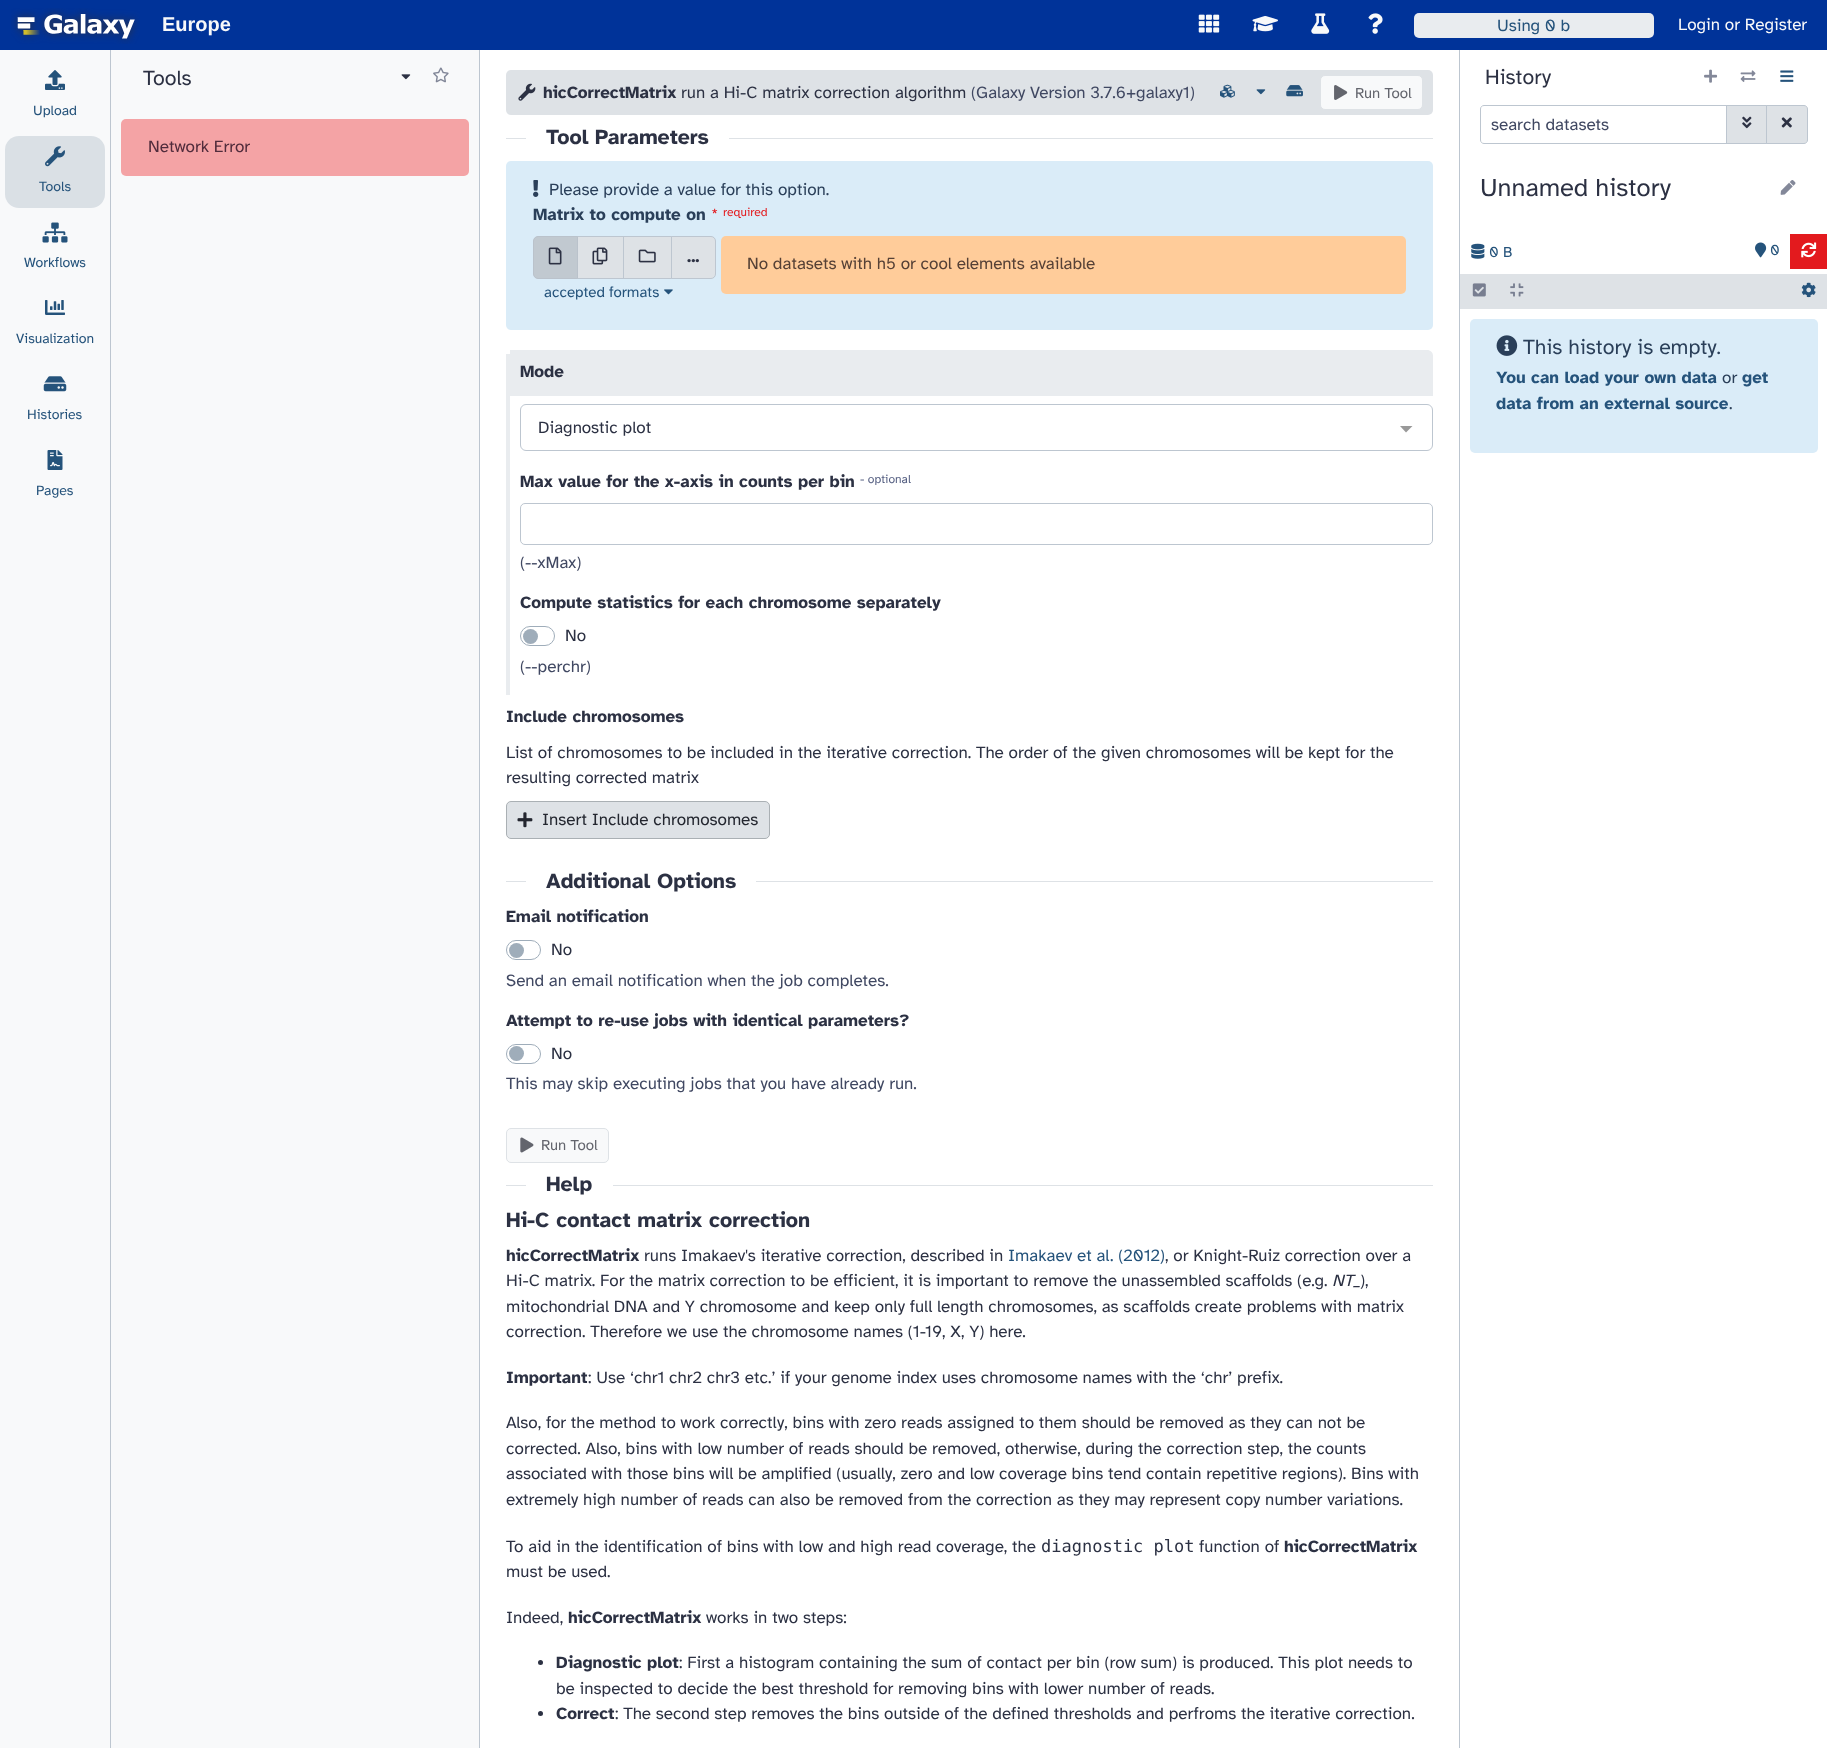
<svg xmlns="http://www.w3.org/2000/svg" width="1827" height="1748">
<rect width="100%" height="100%" fill="#fff"/>
<rect width="1827" height="50" fill="#039"/>
<image x="11" y="8" width="129" height="36" href="media/1.png"/>
<text x="162" y="31" style="font-family:Liberation Sans;font-size:20px;font-weight:bold;fill:#f8f9fa">Europe</text>
<image x="1198" y="14" width="22" height="19" href="media/2.png"/>
<image x="1252" y="16" width="26" height="16" href="media/3.png"/>
<image x="1311" y="13" width="19" height="21" href="media/4.png"/>
<image x="1368" y="13" width="15" height="21" href="media/5.png"/>
<rect x="1414" y="13" width="240" height="25" rx="5" fill="#e9ecef"/>
<text x="1497" y="31" style="font-family:Atkinson Hyperlegible;font-size:17px;fill:#25537b">Using 0 b</text>
<text x="1678" y="30" style="font-family:Atkinson Hyperlegible;font-size:17px;fill:#f8f9fa">Login or Register</text>
<rect y="50" width="110" height="1698" fill="#f8f9fa"/>
<rect x="110" y="50" width="1" height="1698" fill="#bdc6d0"/>
<image x="45" y="70" width="20" height="20" href="media/6.png"/>
<text x="33" y="115" style="font-family:Atkinson Hyperlegible;font-size:14px;fill:#25537b">Upload</text>
<rect x="5" y="136" width="100" height="72" rx="14" fill="#dae0e5"/>
<image x="45" y="146" width="20" height="21" href="media/7.png"/>
<text x="39" y="191" style="font-family:Atkinson Hyperlegible;font-size:14px;fill:#25537b">Tools</text>
<image x="42" y="222" width="26" height="21" href="media/8.png"/>
<text x="24" y="267" style="font-family:Atkinson Hyperlegible;font-size:14px;fill:#25537b">Workflows</text>
<image x="45" y="300" width="20" height="15" href="media/9.png"/>
<text x="16" y="343" style="font-family:Atkinson Hyperlegible;font-size:14px;fill:#25537b">Visualization</text>
<image x="43" y="376" width="24" height="16" href="media/10.png"/>
<text x="27" y="419" style="font-family:Atkinson Hyperlegible;font-size:14px;fill:#25537b">Histories</text>
<image x="47" y="450" width="16" height="20" href="media/11.png"/>
<text x="36" y="495" style="font-family:Atkinson Hyperlegible;font-size:14px;fill:#25537b">Pages</text>
<rect x="111" y="50" width="368" height="1698" fill="#f8f9fa"/>
<text x="143" y="85" style="font-family:Atkinson Hyperlegible;font-size:21.25px;fill:#2c3143">Tools</text>
<image x="401" y="74" width="10" height="6" href="media/12.png"/>
<image x="433" y="67" width="16" height="16" href="media/13.png"/>
<rect x="121" y="119" width="348" height="57" rx="5" fill="#f4a3a5"/>
<text x="148" y="152" style="font-family:Atkinson Hyperlegible;font-size:17px;fill:#512c3c">Network Error</text>
<rect x="479" y="50" width="1" height="1698" fill="#bdc6d0"/>
<rect x="506" y="70" width="927" height="45" rx="5" fill="#dee2e6"/>
<image x="518" y="83" width="18" height="18" href="media/14.png"/>
<text x="543" y="98" style="font-family:Atkinson Hyperlegible;font-size:17px;font-weight:bold;fill:#2c3143">hicCorrectMatrix</text>
<text x="681" y="98" style="font-family:Atkinson Hyperlegible;font-size:17px;fill:#2c3143">run a Hi-C matrix correction algorithm</text>
<text x="971" y="98" style="font-family:Atkinson Hyperlegible;font-size:17px;fill:#404862">(Galaxy Version 3.7.6+galaxy1)</text>
<image x="1220" y="84" width="15" height="14" href="media/15.png"/>
<image x="1256" y="89" width="10" height="6" href="media/16.png"/>
<image x="1286" y="85" width="17" height="12" href="media/17.png"/>
<rect x="1320.5" y="75.5" width="102" height="34" rx="4.5" fill="#f8f9fa" stroke="#dee2e6"/>
<image x="1334" y="85" width="14" height="15" href="media/18.png"/>
<text x="1355" y="98" style="font-family:Atkinson Hyperlegible;font-size:15px;fill:#63656d">Run Tool</text>
<rect x="506" y="138" width="20" height="1" fill="#dee2e6"/>
<text x="546" y="144" style="font-family:Atkinson Hyperlegible;font-size:21.25px;font-weight:bold;fill:#2c3143">Tool Parameters</text>
<rect x="729" y="138" width="704" height="1" fill="#dee2e6"/>
<rect x="506" y="161" width="927" height="169" rx="5" fill="#daecf8"/>
<image x="533" y="180" width="6" height="17" href="media/19.png"/>
<text x="549" y="195" style="font-family:Atkinson Hyperlegible;font-size:17px;fill:#2a3f59">Please provide a value for this option.</text>
<text x="533" y="220" style="font-family:Atkinson Hyperlegible;font-size:17px;font-weight:bold;fill:#2a3f59">Matrix to compute on</text>
<text x="711" y="220" style="font-family:Atkinson Hyperlegible;font-size:17px;fill:#e31a1e">*</text>
<text x="723" y="216" style="font-family:Atkinson Hyperlegible;font-size:12px;fill:#e31a1e">required</text>
<rect x="578" y="237" width="45" height="41" fill="#dee2e6"/>
<rect x="576.5" y="236.5" width="47" height="42" fill="none" stroke="#bdc6d0"/>
<path d="M538 236.5h39.5v42h-39.5c-2.5 0-4.5-2-4.5-4.5v-33c0-2.5 2-4.5 4.5-4.5z" fill="#c1c9d0" stroke="#bac2cb"/>
<image x="548" y="247" width="14" height="18" href="media/20.png"/>
<image x="592" y="247" width="16" height="18" href="media/21.png"/>
<rect x="624" y="237" width="47" height="41" fill="#dee2e6"/>
<rect x="623.5" y="236.5" width="49" height="42" fill="none" stroke="#bdc6d0"/>
<image x="638" y="249" width="18" height="14" href="media/22.png"/>
<path d="M671.5 236.5h39.5c2.5 0 4.5 2 4.5 4.5v33c0 2.5-2 4.5-4.5 4.5h-39.5z" fill="#dee2e6" stroke="#bdc6d0"/>
<text x="687" y="262" style="font-family:Atkinson Hyperlegible;font-size:17px;font-weight:bold;fill:#2c3143">...</text>
<text x="544" y="297" style="font-family:Atkinson Hyperlegible;font-size:15px;fill:#25537b">accepted formats</text>
<image x="664" y="289" width="9" height="6" href="media/23.png"/>
<rect x="721" y="236" width="685" height="58" rx="5" fill="#ffcc9a"/>
<text x="747" y="269" style="font-family:Atkinson Hyperlegible;font-size:17px;fill:#564136">No datasets with h5 or cool elements available</text>
<rect x="506" y="354" width="4" height="341" fill="#e9ecef"/>
<path d="M510 350h917c3.5 0 6 2.5 6 6v40h-923z" fill="#e9ecef"/>
<text x="520" y="377" style="font-family:Atkinson Hyperlegible;font-size:17px;font-weight:bold;fill:#2c3143">Mode</text>
<rect x="520.5" y="404.5" width="912" height="46" rx="5.5" fill="none" stroke="#bdc6d0"/>
<text x="538" y="433" style="font-family:Atkinson Hyperlegible;font-size:17px;fill:#2c3143">Diagnostic plot</text>
<path d="M1400 426h12.5l-6.5 6.5z" fill="#999"/>
<text x="520" y="487" style="font-family:Atkinson Hyperlegible;font-size:17px;font-weight:bold;fill:#2c3143">Max value for the x-axis in counts per bin</text>
<text x="860" y="483" style="font-family:Atkinson Hyperlegible;font-size:12px;fill:#545e81">- optional</text>
<rect x="520.5" y="503.5" width="912" height="41" rx="4.5" fill="none" stroke="#bdc6d0"/>
<text x="520" y="568" style="font-family:Atkinson Hyperlegible;font-size:17px;fill:#404862">(--xMax)</text>
<text x="520" y="608" style="font-family:Atkinson Hyperlegible;font-size:17px;font-weight:bold;fill:#2c3143">Compute statistics for each chromosome separately</text>
<rect x="520.5" y="626.5" width="34" height="19" rx="9.5" fill="none" stroke="#9fadba"/>
<circle cx="530.5" cy="636.5" r="7.5" fill="#9fadba"/>
<text x="565" y="641" style="font-family:Atkinson Hyperlegible;font-size:17px;fill:#2c3143">No</text>
<text x="520" y="672" style="font-family:Atkinson Hyperlegible;font-size:17px;fill:#404862">(--perchr)</text>
<text x="506" y="722" style="font-family:Atkinson Hyperlegible;font-size:17px;font-weight:bold;fill:#2c3143">Include chromosomes</text>
<text x="506" y="758" style="font-family:Atkinson Hyperlegible;font-size:17px;fill:#2c3143">List of chromosomes to be included in the iterative correction. The order of the given chromosomes will be kept for the</text>
<text x="506" y="783" style="font-family:Atkinson Hyperlegible;font-size:17px;fill:#2c3143">resulting corrected matrix</text>
<rect x="506.5" y="801.5" width="263" height="37" rx="4.5" fill="#dee2e6" stroke="#aab0b4"/>
<image x="517" y="812" width="16" height="16" href="media/24.png"/>
<text x="542" y="825" style="font-family:Atkinson Hyperlegible;font-size:17px;fill:#23262f">Insert Include chromosomes</text>
<rect x="506" y="881" width="20" height="1" fill="#dee2e6"/>
<text x="546" y="888" style="font-family:Atkinson Hyperlegible;font-size:21.25px;font-weight:bold;fill:#2c3143">Additional Options</text>
<rect x="756" y="881" width="677" height="1" fill="#dee2e6"/>
<text x="506" y="922" style="font-family:Atkinson Hyperlegible;font-size:17px;font-weight:bold;fill:#2c3143">Email notification</text>
<rect x="506.5" y="940.5" width="34" height="19" rx="9.5" fill="none" stroke="#9fadba"/>
<circle cx="516.5" cy="950.5" r="7.5" fill="#9fadba"/>
<text x="551" y="955" style="font-family:Atkinson Hyperlegible;font-size:17px;fill:#2c3143">No</text>
<text x="506" y="986" style="font-family:Atkinson Hyperlegible;font-size:17px;fill:#404862">Send an email notification when the job completes.</text>
<text x="506" y="1026" style="font-family:Atkinson Hyperlegible;font-size:17px;font-weight:bold;fill:#2c3143">Attempt to re-use jobs with identical parameters?</text>
<rect x="506.5" y="1044.5" width="34" height="19" rx="9.5" fill="none" stroke="#9fadba"/>
<circle cx="516.5" cy="1053.5" r="7.5" fill="#9fadba"/>
<text x="551" y="1059" style="font-family:Atkinson Hyperlegible;font-size:17px;fill:#2c3143">No</text>
<text x="506" y="1089" style="font-family:Atkinson Hyperlegible;font-size:17px;fill:#404862">This may skip executing jobs that you have already run.</text>
<rect x="506.5" y="1128.5" width="102" height="34" rx="4.5" fill="#f8f9fa" stroke="#dee2e6"/>
<image x="520" y="1137" width="14" height="16" href="media/25.png"/>
<text x="541" y="1150" style="font-family:Atkinson Hyperlegible;font-size:15px;fill:#63656d">Run Tool</text>
<rect x="506" y="1185" width="20" height="1" fill="#dee2e6"/>
<text x="546" y="1191" style="font-family:Atkinson Hyperlegible;font-size:21.25px;font-weight:bold;fill:#2c3143">Help</text>
<rect x="613" y="1185" width="820" height="1" fill="#dee2e6"/>
<text x="506" y="1227" style="font-family:Atkinson Hyperlegible;font-size:21.25px;font-weight:bold;fill:#2c3143">Hi-C contact matrix correction</text>
<text x="506" y="1261" style="font-family:Atkinson Hyperlegible;font-size:17px;font-weight:bold;fill:#2c3143">hicCorrectMatrix</text>
<text x="644" y="1261" style="font-family:Atkinson Hyperlegible;font-size:17px;fill:#2c3143">runs Imakaev's iterative correction, described in</text>
<text x="1008" y="1261" style="font-family:Atkinson Hyperlegible;font-size:17px;fill:#25537b">Imakaev et al. (2012)</text>
<text x="1165" y="1261" style="font-family:Atkinson Hyperlegible;font-size:17px;fill:#2c3143">, or Knight-Ruiz correction over a</text>
<text x="506" y="1286" style="font-family:Atkinson Hyperlegible;font-size:17px;fill:#2c3143">Hi-C matrix. For the matrix correction to be efficient, it is important to remove the unassembled scaffolds (e.g.</text>
<text x="1332" y="1286" style="font-family:Atkinson Hyperlegible;font-size:17px;font-style:italic;fill:#2c3143">NT_</text>
<text x="1360" y="1286" style="font-family:Atkinson Hyperlegible;font-size:17px;fill:#2c3143">),</text>
<text x="506" y="1312" style="font-family:Atkinson Hyperlegible;font-size:17px;fill:#2c3143">mitochondrial DNA and Y chromosome and keep only full length chromosomes, as scaffolds create problems with matrix</text>
<text x="506" y="1337" style="font-family:Atkinson Hyperlegible;font-size:17px;fill:#2c3143">correction. Therefore we use the chromosome names (1-19, X, Y) here.</text>
<text x="506" y="1383" style="font-family:Atkinson Hyperlegible;font-size:17px;font-weight:bold;fill:#2c3143">Important</text>
<text x="588" y="1383" style="font-family:Atkinson Hyperlegible;font-size:17px;fill:#2c3143">: Use ‘chr1 chr2 chr3 etc.’ if your genome index uses chromosome names with the ‘chr’ prefix.</text>
<text x="506" y="1428" style="font-family:Atkinson Hyperlegible;font-size:17px;fill:#2c3143">Also, for the method to work correctly, bins with zero reads assigned to them should be removed as they can not be</text>
<text x="506" y="1454" style="font-family:Atkinson Hyperlegible;font-size:17px;fill:#2c3143">corrected. Also, bins with low number of reads should be removed, otherwise, during the correction step, the counts</text>
<text x="506" y="1479" style="font-family:Atkinson Hyperlegible;font-size:17px;fill:#2c3143">associated with those bins will be amplified (usually, zero and low coverage bins tend contain repetitive regions). Bins with</text>
<text x="506" y="1505" style="font-family:Atkinson Hyperlegible;font-size:17px;fill:#2c3143">extremely high number of reads can also be removed from the correction as they may represent copy number variations.</text>
<text x="506" y="1552" style="font-family:Atkinson Hyperlegible;font-size:17px;fill:#2c3143">To aid in the identification of bins with low and high read coverage, the</text>
<text x="1041" y="1552" style="font-family:DejaVu Sans Mono;font-size:17px;fill:#2c3143">diagnostic plot</text>
<text x="1199" y="1552" style="font-family:Atkinson Hyperlegible;font-size:17px;fill:#2c3143">function of</text>
<text x="1284" y="1552" style="font-family:Atkinson Hyperlegible;font-size:17px;font-weight:bold;fill:#2c3143">hicCorrectMatrix</text>
<text x="506" y="1577" style="font-family:Atkinson Hyperlegible;font-size:17px;fill:#2c3143">must be used.</text>
<text x="506" y="1623" style="font-family:Atkinson Hyperlegible;font-size:17px;fill:#2c3143">Indeed,</text>
<text x="568" y="1623" style="font-family:Atkinson Hyperlegible;font-size:17px;font-weight:bold;fill:#2c3143">hicCorrectMatrix</text>
<text x="706" y="1623" style="font-family:Atkinson Hyperlegible;font-size:17px;fill:#2c3143">works in two steps:</text>
<circle cx="540.5" cy="1662.5" r="2.5" fill="#2c3143"/>
<text x="556" y="1668" style="font-family:Atkinson Hyperlegible;font-size:17px;font-weight:bold;fill:#2c3143">Diagnostic plot</text>
<text x="679" y="1668" style="font-family:Atkinson Hyperlegible;font-size:17px;fill:#2c3143">: First a histogram containing the sum of contact per bin (row sum) is produced. This plot needs to</text>
<text x="556" y="1694" style="font-family:Atkinson Hyperlegible;font-size:17px;fill:#2c3143">be inspected to decide the best threshold for removing bins with lower number of reads.</text>
<circle cx="540.5" cy="1713.5" r="2.5" fill="#2c3143"/>
<text x="556" y="1719" style="font-family:Atkinson Hyperlegible;font-size:17px;font-weight:bold;fill:#2c3143">Correct</text>
<text x="615" y="1719" style="font-family:Atkinson Hyperlegible;font-size:17px;fill:#2c3143">: The second step removes the bins outside of the defined thresholds and perfroms the iterative correction.</text>
<rect x="1459" y="50" width="1" height="1698" fill="#bdc6d0"/>
<text x="1485" y="84" style="font-family:Atkinson Hyperlegible;font-size:21.25px;fill:#2c3143">History</text>
<image x="1704" y="69" width="14" height="14" href="media/26.png"/>
<image x="1740" y="70" width="16" height="12" href="media/27.png"/>
<image x="1780" y="70" width="14" height="12" href="media/28.png"/>
<path d="M1484 105.5h243.5v38h-243.5c-2 0-3.5-1.5-3.5-3.5v-31c0-2 1.5-3.5 3.5-3.5z" fill="none" stroke="#bdc6d0"/>
<text x="1491" y="130" style="font-family:Atkinson Hyperlegible;font-size:17px;fill:#404862">search datasets</text>
<rect x="1727" y="106" width="39" height="37" fill="#dee2e6"/>
<rect x="1726.5" y="105.5" width="41" height="38" fill="none" stroke="#bdc6d0"/>
<image x="1742" y="116" width="10" height="13" href="media/29.png"/>
<path d="M1766.5 105.5h37.5c2 0 3.5 1.5 3.5 3.5v31c0 2-1.5 3.5-3.5 3.5h-37.5z" fill="#dee2e6" stroke="#bdc6d0"/>
<image x="1781" y="117" width="11" height="11" href="media/30.png"/>
<text x="1480" y="196" style="font-family:Atkinson Hyperlegible;font-size:25.5px;fill:#2c3143">Unnamed history</text>
<image x="1780" y="180" width="16" height="15" href="media/31.png"/>
<image x="1471" y="243" width="14" height="16" href="media/32.png"/>
<text x="1489" y="257" style="font-family:Atkinson Hyperlegible;font-size:15px;fill:#25537b">0 B</text>
<image x="1755" y="242" width="12" height="16" href="media/33.png"/>
<text x="1770" y="255" style="font-family:Atkinson Hyperlegible;font-size:15px;fill:#25537b">0</text>
<rect x="1790" y="234" width="37" height="35" fill="#e31a1e"/>
<image x="1801" y="242" width="16" height="16" href="media/34.png"/>
<rect x="1460" y="274" width="367" height="35" fill="#dee2e6"/>
<image x="1472" y="283" width="14" height="14" href="media/35.png"/>
<image x="1510" y="283" width="14" height="14" href="media/36.png"/>
<image x="1801" y="282" width="15" height="16" href="media/37.png"/>
<rect x="1470" y="319" width="348" height="134" rx="5" fill="#daecf8"/>
<image x="1496" y="335" width="22" height="21" href="media/38.png"/>
<text x="1523" y="354" style="font-family:Atkinson Hyperlegible;font-size:21.25px;fill:#2a3f59">This history is empty.</text>
<text x="1496" y="383" style="font-family:Atkinson Hyperlegible;font-size:17px;font-weight:bold;fill:#25537b">You can load your own data</text>
<text x="1722" y="383" style="font-family:Atkinson Hyperlegible;font-size:17px;fill:#2a3f59">or</text>
<text x="1742" y="383" style="font-family:Atkinson Hyperlegible;font-size:17px;font-weight:bold;fill:#25537b">get</text>
<text x="1496" y="409" style="font-family:Atkinson Hyperlegible;font-size:17px;font-weight:bold;fill:#25537b">data from an external source</text>
<text x="1729" y="409" style="font-family:Atkinson Hyperlegible;font-size:17px;fill:#2a3f59">.</text>
</svg>
